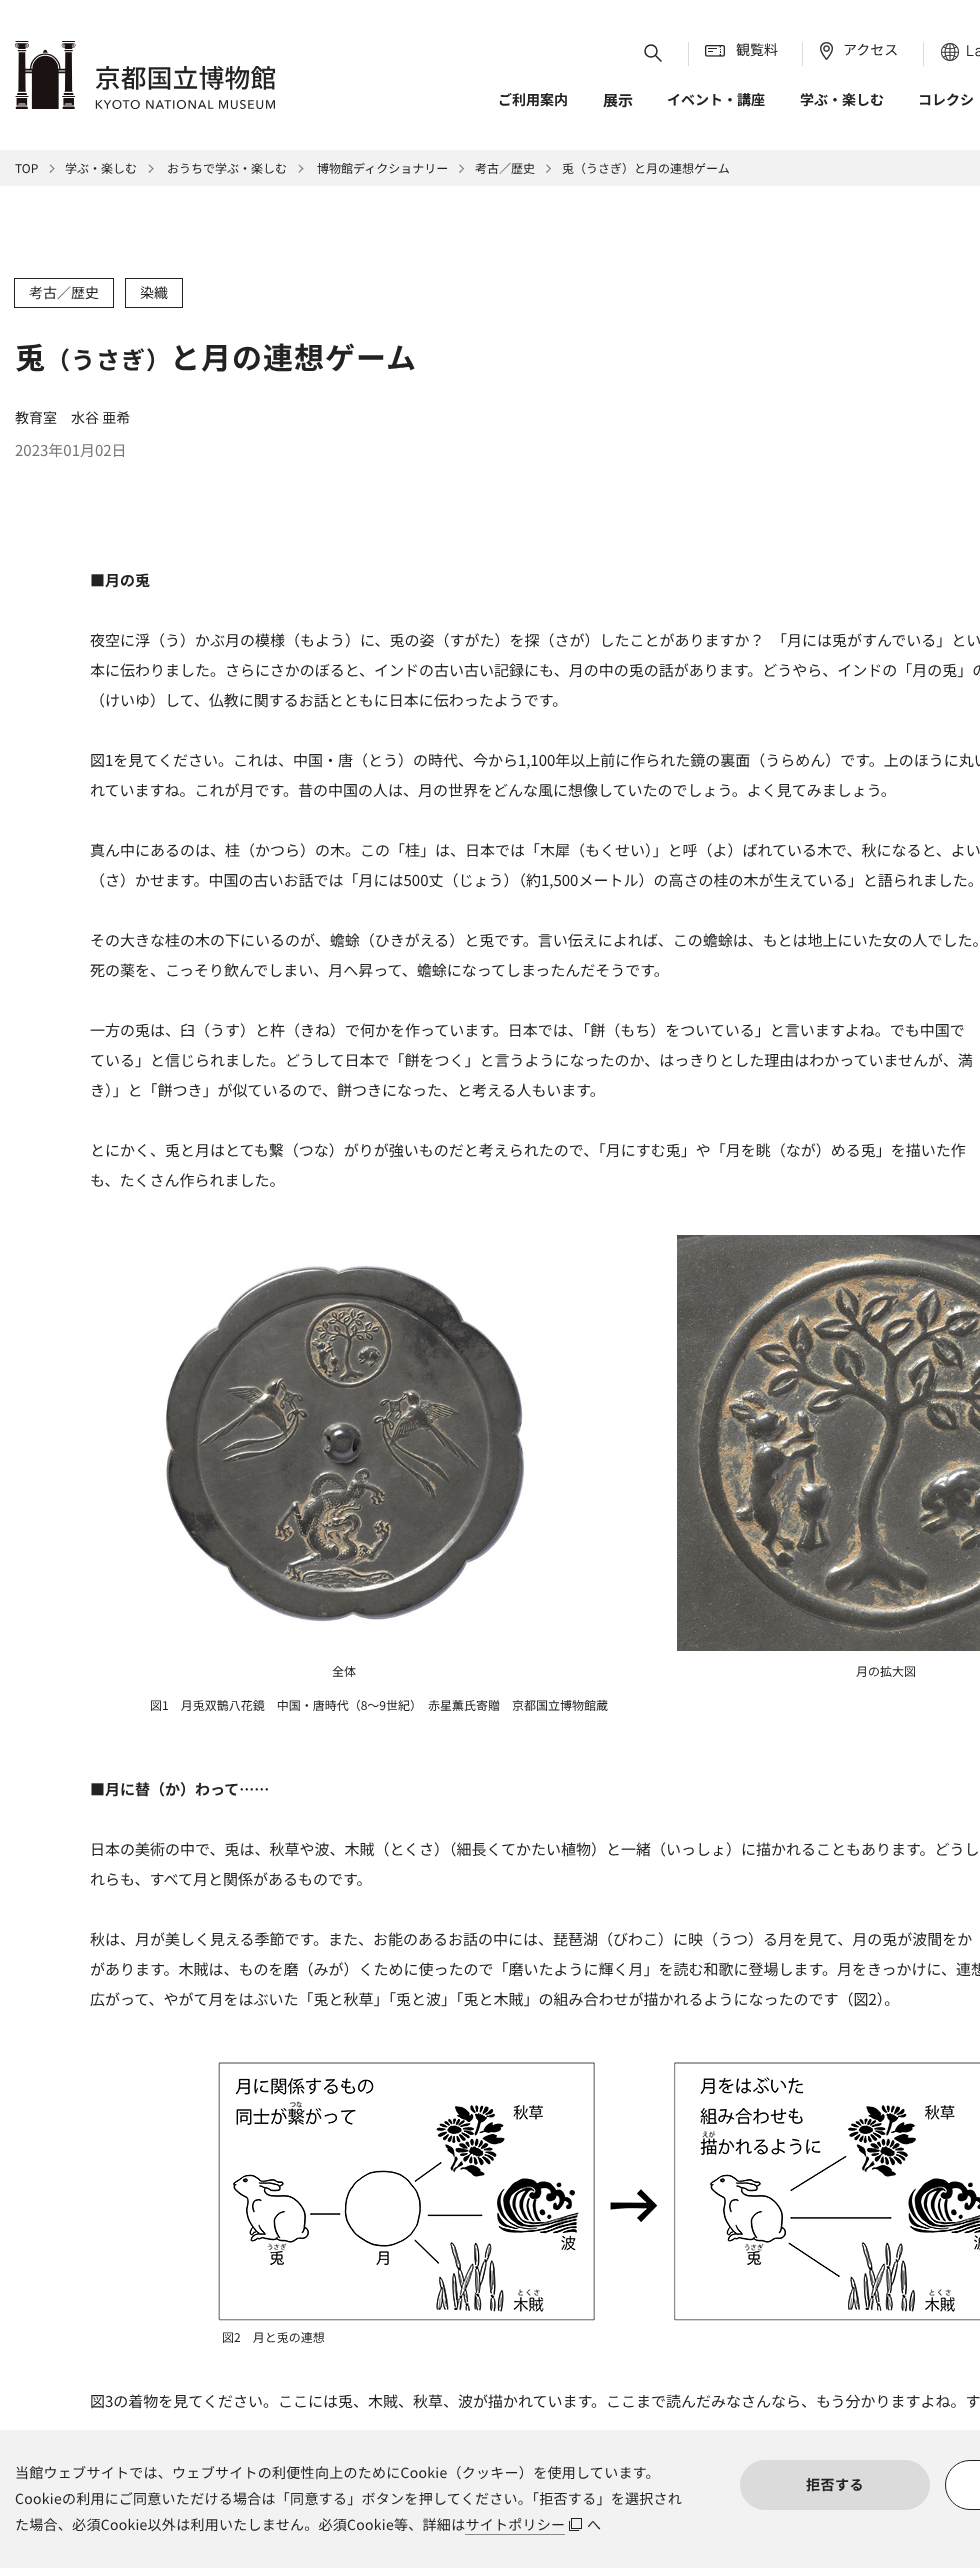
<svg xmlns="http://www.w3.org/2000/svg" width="980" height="2568">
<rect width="100%" height="100%" fill="#fff"/>
<image x="15" y="41" width="260" height="68" href="media/1.png"/>
<circle cx="651" cy="51" r="6" fill="none" stroke="#222" stroke-width="1.5"/>
<path d="M655.5 55.5l6 6" fill="none" stroke="#222" stroke-width="1.5"/>
<rect x="688" y="42" width="1" height="24" fill="#dbdbdb"/>
<image x="705" y="45" width="20" height="12" href="media/2.png"/>
<text x="736" y="55" style="font-family:Noto Sans JP;font-size:14px;fill:#222">観覧料</text>
<rect x="802" y="42" width="1" height="24" fill="#dbdbdb"/>
<image x="820" y="42" width="13" height="18" href="media/3.png"/>
<text x="843" y="55" style="font-family:Noto Sans JP;font-size:14px;fill:#222">アクセス</text>
<rect x="923" y="42" width="1" height="24" fill="#dbdbdb"/>
<image x="941" y="43" width="18" height="18" href="media/4.png"/>
<text x="966" y="56" style="font-family:Manrope;font-size:15px;letter-spacing:1px;fill:#222">La</text>
<text x="498" y="105" style="font-family:Noto Sans JP;font-size:14px;font-weight:bold;fill:#222">ご利用案内</text>
<text x="603" y="106" style="font-family:Noto Sans JP;font-size:15px;font-weight:bold;fill:#222">展示</text>
<text x="667" y="105" style="font-family:Noto Sans JP;font-size:14px;font-weight:bold;fill:#222">イベント・講座</text>
<text x="800" y="105" style="font-family:Noto Sans JP;font-size:14px;font-weight:bold;fill:#222">学ぶ・楽しむ</text>
<text x="918" y="105" style="font-family:Noto Sans JP;font-size:14px;font-weight:bold;fill:#222">コレクシ</text>
<rect y="150" width="980" height="36" fill="#f2f2f2"/>
<text x="15" y="173" style="font-family:Noto Sans JP;font-size:12px;fill:#222">TOP</text>
<path d="M50.5 164.5l4 4l-.5 1l-4.5-4.5z" fill="#757575"/>
<path d="M54 168l.5 .5l-4 4.5l-1-1z" fill="#757575"/>
<text x="65" y="173" style="font-family:Noto Sans JP;font-size:12px;fill:#222">学ぶ・楽しむ</text>
<path d="M149.5 164.5l4 4l-.5 1l-4.5-4.5z" fill="#757575"/>
<path d="M153 168l.5 .5l-4 4.5l-1-1z" fill="#757575"/>
<text x="167" y="173" style="font-family:Noto Sans JP;font-size:12px;fill:#222">おうちで学ぶ・楽しむ</text>
<path d="M299 164.5l4.5 4l-1 1l-4-4.5z" fill="#757575"/>
<path d="M302.5 168l1 .5l-4.5 4.5l-.5-1z" fill="#757575"/>
<text x="317" y="173" style="font-family:Noto Sans JP;font-size:12px;fill:#222">博物館ディクショナリー</text>
<path d="M460 164.5l4 4l-.5 1l-4.5-4.5z" fill="#757575"/>
<path d="M463.5 168l.5 .5l-4 4.5l-1-1z" fill="#757575"/>
<text x="475" y="173" style="font-family:Noto Sans JP;font-size:12px;fill:#222">考古／歴史</text>
<path d="M547 164.5l4 4l-.5 1l-4.5-4.5z" fill="#757575"/>
<path d="M550.5 168l.5 .5l-4 4.5l-1-1z" fill="#757575"/>
<text x="562" y="173" style="font-family:Noto Sans JP;font-size:12px;fill:#222">兎（うさぎ）と月の連想ゲーム</text>
<rect x="14.5" y="278.5" width="99" height="29" fill="none" stroke="#222"/>
<text x="29" y="298" style="font-family:Noto Sans JP;font-size:14px;fill:#222">考古／歴史</text>
<rect x="125.5" y="278.5" width="57" height="29" fill="none" stroke="#222"/>
<text x="140" y="298" style="font-family:Noto Sans JP;font-size:14px;fill:#222">染織</text>
<text x="15" y="369" style="font-family:Noto Sans JP;font-size:30px;font-weight:bold;letter-spacing:1px;fill:#222">兎</text>
<text x="46" y="369" style="font-family:Noto Sans JP;font-size:24px;font-weight:bold;letter-spacing:1px;fill:#222">（うさぎ）</text>
<text x="170" y="369" style="font-family:Noto Sans JP;font-size:30px;font-weight:bold;letter-spacing:1px;fill:#222">と月の連想ゲーム</text>
<text x="15" y="423" style="font-family:Noto Sans JP;font-size:14px;fill:#222">教育室　水谷 亜希</text>
<text x="15" y="456" style="font-family:Noto Sans JP;font-size:15px;fill:#757575">2023年01月02日</text>
<text x="90" y="586" style="font-family:Noto Sans JP;font-size:15px;font-weight:bold;fill:#222">■月の兎</text>
<text x="90" y="646" style="font-family:Noto Sans JP;font-size:15px;fill:#222">夜空に浮（う）かぶ月の模様（もよう）に、兎の姿（すがた）を探（さが）したことがありますか？　「月には兎がすんでいる」とい</text>
<text x="90" y="676" style="font-family:Noto Sans JP;font-size:15px;fill:#222">本に伝わりました。さらにさかのぼると、インドの古い古い記録にも、月の中の兎の話があります。どうやら、インドの「月の兎」の</text>
<text x="90" y="706" style="font-family:Noto Sans JP;font-size:15px;fill:#222">（けいゆ）して、仏教に関するお話とともに日本に伝わったようです。</text>
<text x="90" y="766" style="font-family:Noto Sans JP;font-size:15px;fill:#222">図1を見てください。これは、中国・唐（とう）の時代、今から1,100年以上前に作られた鏡の裏面（うらめん）です。上のほうに丸い</text>
<text x="90" y="796" style="font-family:Noto Sans JP;font-size:15px;fill:#222">れていますね。これが月です。昔の中国の人は、月の世界をどんな風に想像していたのでしょう。よく見てみましょう。</text>
<text x="90" y="856" style="font-family:Noto Sans JP;font-size:15px;fill:#222">真ん中にあるのは、桂（かつら）の木。この「桂」は、日本では「木犀（もくせい）」と呼（よ）ばれている木で、秋になると、よい</text>
<text x="90" y="886" style="font-family:Noto Sans JP;font-size:15px;fill:#222">（さ）かせます。中国の古いお話では「月には500丈（じょう）（約1,500メートル）の高さの桂の木が生えている」と語られました。</text>
<text x="90" y="946" style="font-family:Noto Sans JP;font-size:15px;fill:#222">その大きな桂の木の下にいるのが、蟾蜍（ひきがえる）と兎です。言い伝えによれば、この蟾蜍は、もとは地上にいた女の人でした。</text>
<text x="90" y="976" style="font-family:Noto Sans JP;font-size:15px;fill:#222">死の薬を、こっそり飲んでしまい、月へ昇って、蟾蜍になってしまったんだそうです。</text>
<text x="90" y="1036" style="font-family:Noto Sans JP;font-size:15px;fill:#222">一方の兎は、臼（うす）と杵（きね）で何かを作っています。日本では、「餅（もち）をついている」と言いますよね。でも中国で</text>
<text x="90" y="1066" style="font-family:Noto Sans JP;font-size:15px;fill:#222">ている」と信じられました。どうして日本で「餅をつく」と言うようになったのか、はっきりとした理由はわかっていませんが、満</text>
<text x="90" y="1096" style="font-family:Noto Sans JP;font-size:15px;fill:#222">き）」と「餅つき」が似ているので、餅つきになった、と考える人もいます。</text>
<text x="90" y="1156" style="font-family:Noto Sans JP;font-size:15px;fill:#222">とにかく、兎と月はとても繋（つな）がりが強いものだと考えられたので、「月にすむ兎」や「月を眺（なが）める兎」を描いた作</text>
<text x="90" y="1186" style="font-family:Noto Sans JP;font-size:15px;fill:#222">も、たくさん作られました。</text>
<image x="163" y="1265" width="363" height="357" href="media/5.png"/>
<text x="332" y="1676" style="font-family:Noto Sans JP;font-size:12px;fill:#222">全体</text>
<image x="677" y="1235" width="303" height="416" href="media/6.png"/>
<text x="856" y="1676" style="font-family:Noto Sans JP;font-size:12px;fill:#222">月の拡大図</text>
<text x="150" y="1710" style="font-family:Noto Sans JP;font-size:12px;fill:#222">図1　月兎双鵲八花鏡　中国・唐時代（8～9世紀）　赤星薫氏寄贈　京都国立博物館蔵</text>
<text x="90" y="1795" style="font-family:Noto Sans JP;font-size:15px;font-weight:bold;fill:#222">■月に替（か）わって……</text>
<text x="90" y="1855" style="font-family:Noto Sans JP;font-size:15px;fill:#222">日本の美術の中で、兎は、秋草や波、木賊（とくさ）（細長くてかたい植物）と一緒（いっしょ）に描かれることもあります。どうし</text>
<text x="90" y="1885" style="font-family:Noto Sans JP;font-size:15px;fill:#222">れらも、すべて月と関係があるものです。</text>
<text x="90" y="1945" style="font-family:Noto Sans JP;font-size:15px;fill:#222">秋は、月が美しく見える季節です。また、お能のあるお話の中には、琵琶湖（びわこ）に映（うつ）る月を見て、月の兎が波間をか</text>
<text x="90" y="1975" style="font-family:Noto Sans JP;font-size:15px;fill:#222">があります。木賊は、ものを磨（みが）くために使ったので「磨いたように輝く月」を読む和歌に登場します。月をきっかけに、連想</text>
<text x="90" y="2005" style="font-family:Noto Sans JP;font-size:15px;fill:#222">広がって、やがて月をはぶいた「兎と秋草」「兎と波」「兎と木賊」の組み合わせが描かれるようになったのです（図2）。</text>
<image x="218" y="2062" width="762" height="259" href="media/7.png"/>
<text x="222" y="2342" style="font-family:Noto Sans JP;font-size:12px;fill:#222">図2　月と兎の連想</text>
<text x="90" y="2407" style="font-family:Noto Sans JP;font-size:15px;fill:#222">図3の着物を見てください。ここには兎、木賊、秋草、波が描かれています。ここまで読んだみなさんなら、もう分かりますよね。す</text>
<rect y="2430" width="980" height="138" fill="#f2f2f2"/>
<text x="15" y="2478" style="font-family:Noto Sans JP;font-size:14px;letter-spacing:0.28px;fill:#222">当館ウェブサイトでは、ウェブサイトの利便性向上のためにCookie（クッキー）を使用しています。</text>
<text x="15" y="2504" style="font-family:Noto Sans JP;font-size:14px;letter-spacing:0.28px;fill:#222">Cookieの利用にご同意いただける場合は「同意する」ボタンを押してください。「拒否する」を選択され</text>
<text x="15" y="2530" style="font-family:Noto Sans JP;font-size:14px;letter-spacing:0.28px;fill:#222">た場合、必須Cookie以外は利用いたしません。必須Cookie等、詳細はサイトポリシー</text>
<image x="569" y="2518" width="13" height="13" href="media/8.png"/>
<path d="M465.5 2534.5h100" fill="none" stroke="#222" stroke-dasharray="1 1"/>
<text x="587" y="2530" style="font-family:Noto Sans JP;font-size:14px;letter-spacing:0.28px;fill:#222">へ</text>
<rect x="740.5" y="2460.5" width="189" height="49" rx="24.5" fill="#dbdbdb" stroke="#dbdbdb"/>
<text x="806" y="2490" style="font-family:Noto Sans JP;font-size:14px;font-weight:bold;letter-spacing:0.5px;fill:#222">拒否する</text>
<rect x="945.5" y="2460.5" width="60" height="49" rx="24.5" fill="#fff" stroke="#222"/>
</svg>
